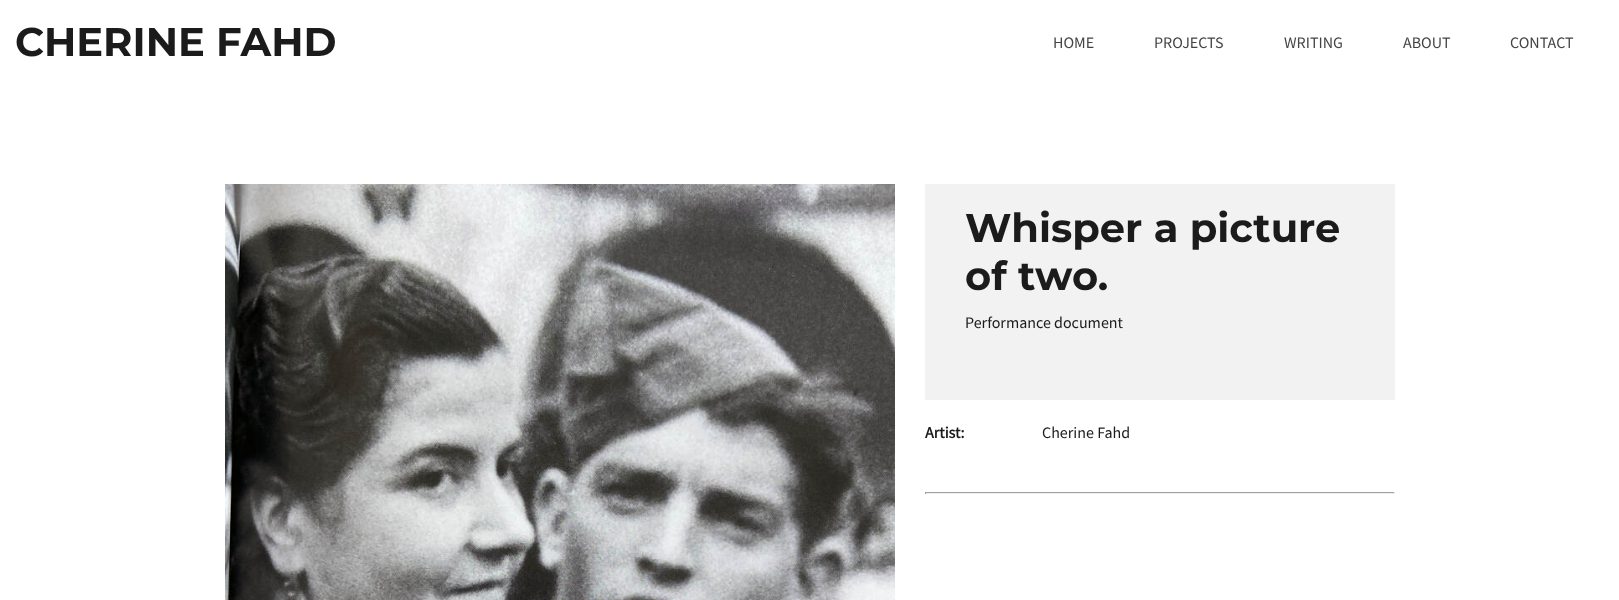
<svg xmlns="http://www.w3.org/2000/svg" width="1619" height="600">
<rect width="100%" height="100%" fill="#fff"/>
<text x="15" y="56" style="font-family:Montserrat;font-size:40px;font-weight:100;fill:#1b1b1b">CHERINE FAHD</text>
<text x="1053" y="48" style="font-family:Source Sans Pro;font-size:16px;fill:#444">HOME</text>
<text x="1154" y="48" style="font-family:Source Sans Pro;font-size:16px;fill:#444">PROJECTS</text>
<text x="1284" y="48" style="font-family:Source Sans Pro;font-size:16px;fill:#444">WRITING</text>
<text x="1403" y="48" style="font-family:Source Sans Pro;font-size:16px;fill:#444">ABOUT</text>
<text x="1510" y="48" style="font-family:Source Sans Pro;font-size:16px;fill:#444">CONTACT</text>
<image x="225" y="184" width="670" height="416" href="media/1.png"/>
<rect x="925" y="184" width="470" height="216" fill="#f2f2f2"/>
<text x="965" y="242" style="font-family:Montserrat;font-size:40px;font-weight:100;fill:#1b1b1b">Whisper a picture</text>
<text x="965" y="290" style="font-family:Montserrat;font-size:40px;font-weight:100;fill:#1b1b1b">of two.</text>
<text x="965" y="328" style="font-family:Source Sans Pro;font-size:16px;fill:#1b1b1b">Performance document</text>
<text x="925" y="438" style="font-family:Source Sans Pro;font-size:16px;font-weight:bold;fill:#1b1b1b">Artist:</text>
<text x="1042" y="438" style="font-family:Source Sans Pro;font-size:16px;fill:#1b1b1b">Cherine Fahd</text>
<rect x="925" y="492" width="470" height="1" fill="#9f9f9f"/>
<rect x="1394" y="492" width="1" height="2" fill="#eee"/>
<rect x="925" y="493" width="470" height="1" fill="#eee"/>
<rect x="925" y="492" width="1" height="2" fill="#9f9f9f"/>
</svg>
